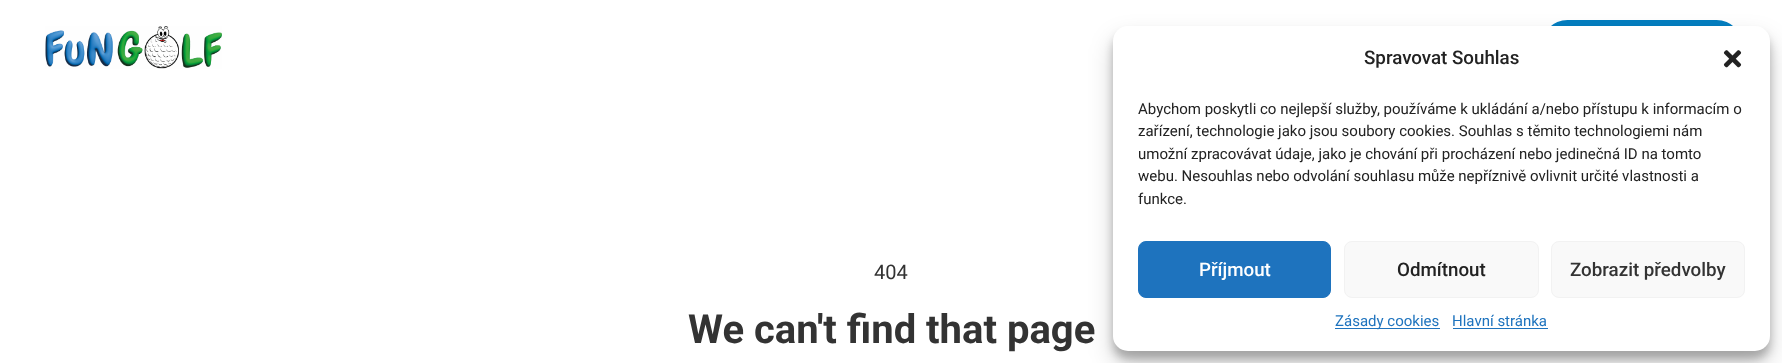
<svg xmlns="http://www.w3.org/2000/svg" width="1782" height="363">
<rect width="100%" height="100%" fill="#fff"/>
<image x="45" y="26" width="177" height="43" href="media/1.png"/>
<rect x="1541" y="20" width="202" height="53" rx="26.5" fill="#047ec0"/>
<text x="874" y="279" style="font-family:Roboto;font-size:20px;fill:#333">404</text>
<text x="688" y="343" style="font-family:Roboto;font-size:40px;font-weight:bold;fill:#333">We can't find that page</text>
<rect x="1113" y="34" width="657" height="325" rx="15" fill="#0000003b" filter="blur(4px)"/>
<rect x="1113" y="39" width="657" height="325" rx="15" fill="#00000030" filter="blur(12.5px)"/>
<rect x="1113" y="26" width="657" height="325" rx="15" fill="#fff"/>
<text x="1364" y="64" style="font-family:Roboto;font-size:18.75px;font-weight:500;fill:#222">Spravovat Souhlas</text>
<image x="1723" y="50" width="19" height="18" href="media/2.png"/>
<text x="1138" y="114" style="font-family:Roboto;font-size:15px;fill:#222">Abychom poskytli co nejlepší služby, používáme k ukládání a/nebo přístupu k informacím o</text>
<text x="1138" y="136" style="font-family:Roboto;font-size:15px;fill:#222">zařízení, technologie jako jsou soubory cookies. Souhlas s těmito technologiemi nám</text>
<text x="1138" y="159" style="font-family:Roboto;font-size:15px;fill:#222">umožní zpracovávat údaje, jako je chování při procházení nebo jedinečná ID na tomto</text>
<text x="1138" y="181" style="font-family:Roboto;font-size:15px;fill:#222">webu. Nesouhlas nebo odvolání souhlasu může nepříznivě ovlivnit určité vlastnosti a</text>
<text x="1138" y="204" style="font-family:Roboto;font-size:15px;fill:#222">funkce.</text>
<rect x="1138.5" y="241.5" width="192" height="56" rx="7.5" fill="#1e73be" stroke="#1e73be"/>
<text x="1199" y="276" style="font-family:Roboto;font-size:18.75px;font-weight:500;fill:#fff">Příjmout</text>
<rect x="1344.5" y="241.5" width="194" height="56" rx="7.5" fill="#f9f9f9" stroke="#f2f2f2"/>
<text x="1397" y="276" style="font-family:Roboto;font-size:18.75px;font-weight:500;fill:#222">Odmítnout</text>
<rect x="1551.5" y="241.5" width="193" height="56" rx="7.5" fill="#f9f9f9" stroke="#f2f2f2"/>
<text x="1570" y="276" style="font-family:Roboto;font-size:18.75px;font-weight:500;fill:#333">Zobrazit předvolby</text>
<rect x="1335" y="328" width="105" height="1" fill="#1e73be"/>
<text x="1335" y="326" style="font-family:Roboto;font-size:15px;fill:#1e73be">Zásady cookies</text>
<text x="1452" y="326" style="font-family:Roboto;font-size:15px;fill:#1e73be">Hlavní stránka</text>
<rect x="1453" y="328" width="95" height="1" fill="#1e73be"/>
</svg>
